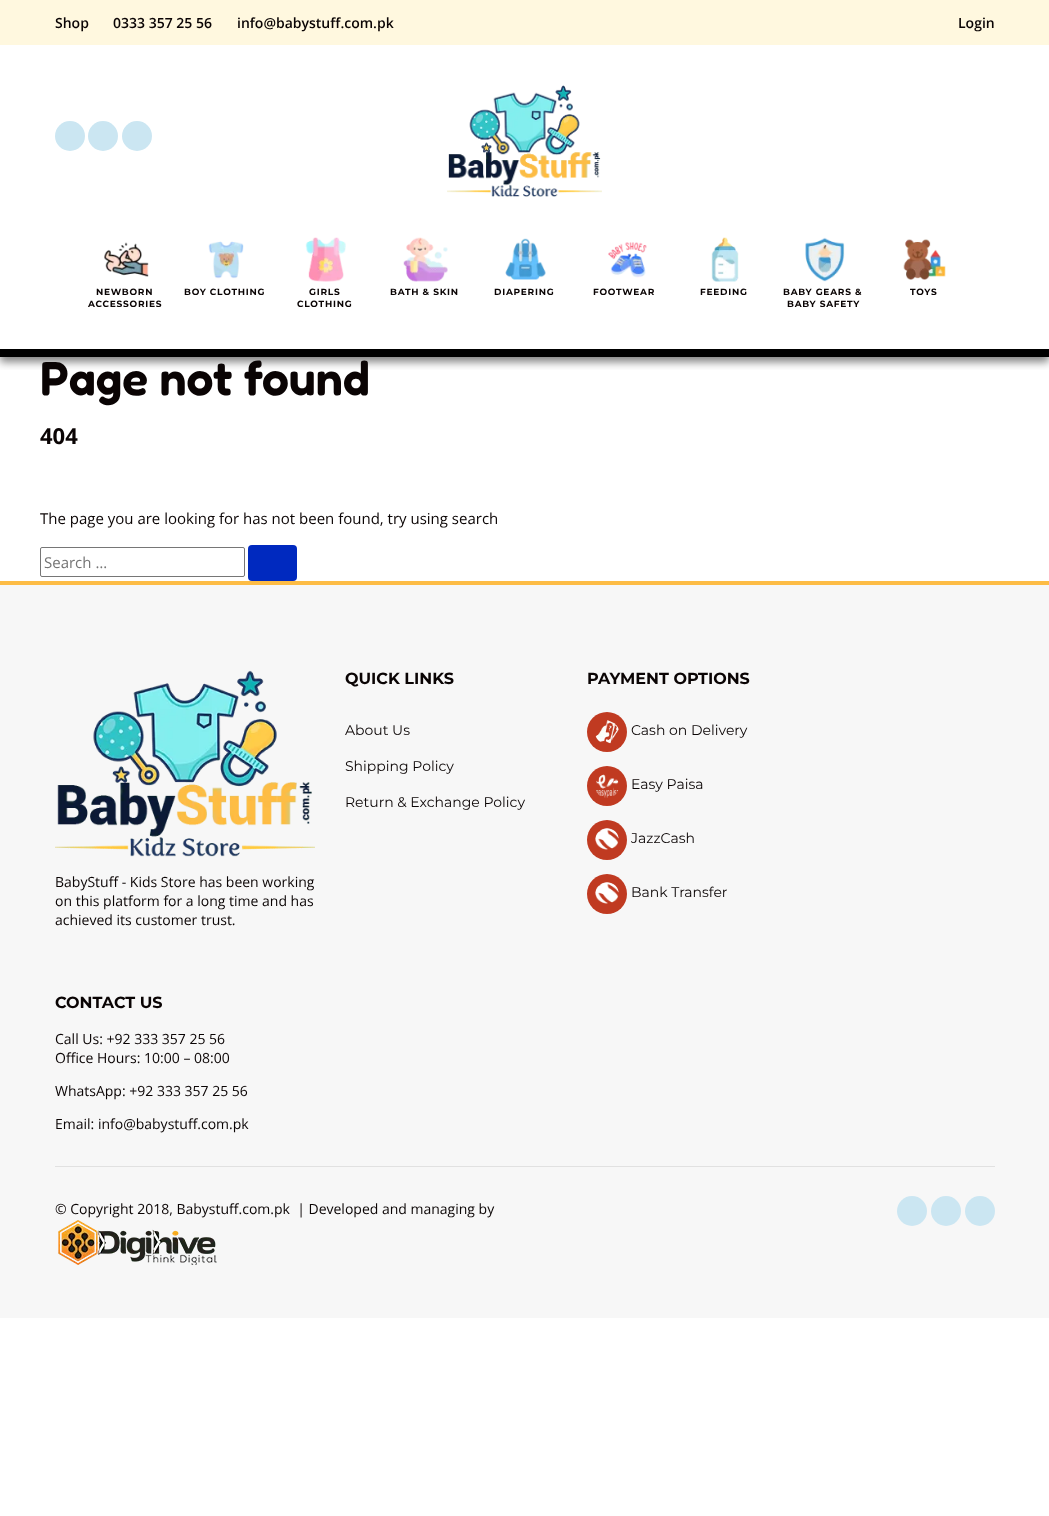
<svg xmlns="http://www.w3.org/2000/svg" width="1049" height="1516">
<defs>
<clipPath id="clip1"><rect x="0" y="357" width="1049" height="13"/></clipPath>
</defs>
<rect width="100%" height="100%" fill="#fff"/>
<g clip-path="url(#clip1)">
<rect y="5" width="1049" height="357" fill="#0000007d" filter="blur(4.5px)"/>
</g>
<rect y="349" width="1049" height="8" fill="#000"/>
<rect width="1049" height="45" fill="#fff8df"/>
<text x="55" y="28" style="font-family:Open Sans;font-size:14px;font-weight:600;fill:#0a0404">Shop</text>
<text x="113" y="28" style="font-family:Open Sans;font-size:14px;font-weight:600;fill:#0a0404">0333 357 25 56</text>
<text x="237" y="28" style="font-family:Open Sans;font-size:14px;font-weight:600;fill:#0a0404">info@babystuff.com.pk</text>
<text x="958" y="28" style="font-family:Open Sans;font-size:14px;font-weight:600;fill:#0a0404">Login</text>
<circle cx="70" cy="136" r="15" fill="#cbe6f2"/>
<circle cx="103" cy="136" r="15" fill="#cbe6f2"/>
<circle cx="137" cy="136" r="15" fill="#cbe6f2"/>
<image x="447" y="85" width="155" height="112" href="media/1.png"/>
<image x="104" y="242" width="45" height="35" href="media/2.png"/>
<text x="96" y="295" style="font-family:Montserrat;font-size:9px;font-weight:bold;letter-spacing:0.75px;fill:#0a0404">NEWBORN</text>
<text x="88" y="307" style="font-family:Montserrat;font-size:9px;font-weight:bold;letter-spacing:0.75px;fill:#0a0404">ACCESSORIES</text>
<image x="208" y="241" width="36" height="38" href="media/3.png"/>
<text x="184" y="295" style="font-family:Montserrat;font-size:9px;font-weight:bold;letter-spacing:0.75px;fill:#0a0404">BOY CLOTHING</text>
<image x="305" y="237" width="41" height="45" href="media/4.png"/>
<text x="309" y="295" style="font-family:Montserrat;font-size:9px;font-weight:bold;letter-spacing:0.75px;fill:#0a0404">GIRLS</text>
<text x="297" y="307" style="font-family:Montserrat;font-size:9px;font-weight:bold;letter-spacing:0.75px;fill:#0a0404">CLOTHING</text>
<image x="403" y="237" width="45" height="45" href="media/5.png"/>
<text x="390" y="295" style="font-family:Montserrat;font-size:9px;font-weight:bold;letter-spacing:0.75px;fill:#0a0404">BATH &amp; SKIN</text>
<image x="505" y="238" width="41" height="42" href="media/6.png"/>
<text x="494" y="295" style="font-family:Montserrat;font-size:9px;font-weight:bold;letter-spacing:0.75px;fill:#0a0404">DIAPERING</text>
<image x="608" y="242" width="39" height="36" href="media/7.png"/>
<text x="593" y="295" style="font-family:Montserrat;font-size:9px;font-weight:bold;letter-spacing:0.75px;fill:#0a0404">FOOTWEAR</text>
<image x="711" y="237" width="28" height="45" href="media/8.png"/>
<text x="700" y="295" style="font-family:Montserrat;font-size:9px;font-weight:bold;letter-spacing:0.75px;fill:#0a0404">FEEDING</text>
<image x="805" y="237" width="40" height="45" href="media/9.png"/>
<text x="783" y="295" style="font-family:Montserrat;font-size:9px;font-weight:bold;letter-spacing:0.75px;fill:#0a0404">BABY GEARS &amp;</text>
<text x="787" y="307" style="font-family:Montserrat;font-size:9px;font-weight:bold;letter-spacing:0.75px;fill:#0a0404">BABY SAFETY</text>
<image x="903" y="239" width="43" height="41" href="media/10.png"/>
<text x="910" y="295" style="font-family:Montserrat;font-size:9px;font-weight:bold;letter-spacing:0.75px;fill:#0a0404">TOYS</text>
<text x="40" y="395" style="font-family:Fredoka;font-size:48px;font-weight:600;fill:#0a0404">Page not found</text>
<text x="40" y="444" style="font-family:Open Sans;font-size:22px;font-weight:bold;fill:#0a0404">404</text>
<text x="40" y="524" style="font-family:Open Sans;font-size:15px;fill:#0a0404">The page you are looking for has not been found, try using search</text>
<rect x="40.5" y="547.5" width="204" height="29" rx="1.5" fill="none" stroke="#767676"/>
<text x="44" y="568" style="font-family:Open Sans;font-size:15px;fill:#757575">Search …</text>
<rect x="248" y="545" width="49" height="36" rx="4" fill="#0029bf"/>
<rect y="585" width="1049" height="733" fill="#f7f7f7"/>
<rect y="581" width="1049" height="4" fill="#fdbc45"/>
<image x="55" y="670" width="260" height="187" href="media/11.png"/>
<text x="55" y="887" style="font-family:Open Sans;font-size:14px;fill:#0a0404">BabyStuff - Kids Store has been working</text>
<text x="55" y="906" style="font-family:Open Sans;font-size:14px;fill:#0a0404">on this platform for a long time and has</text>
<text x="55" y="925" style="font-family:Open Sans;font-size:14px;fill:#0a0404">achieved its customer trust.</text>
<text x="345" y="684" style="font-family:Montserrat;font-size:16px;font-weight:bold;fill:#0a0404">QUICK LINKS</text>
<text x="345" y="735" style="font-family:Montserrat;font-size:14px;fill:#0a0404">About Us</text>
<text x="345" y="771" style="font-family:Montserrat;font-size:14px;fill:#0a0404">Shipping Policy</text>
<text x="345" y="807" style="font-family:Montserrat;font-size:14px;fill:#0a0404">Return &amp; Exchange Policy</text>
<text x="587" y="684" style="font-family:Montserrat;font-size:16px;font-weight:bold;fill:#0a0404">PAYMENT OPTIONS</text>
<circle cx="607" cy="732" r="20" fill="#c03a21"/>
<image x="595" y="720" width="24" height="24" href="media/12.png"/>
<text x="631" y="735" style="font-family:Montserrat;font-size:14px;fill:#0a0404">Cash on Delivery</text>
<circle cx="607" cy="786" r="20" fill="#c03a21"/>
<image x="596" y="774" width="23" height="24" href="media/13.png"/>
<text x="631" y="789" style="font-family:Montserrat;font-size:14px;fill:#0a0404">Easy Paisa</text>
<circle cx="607" cy="840" r="20" fill="#c03a21"/>
<image x="595" y="828" width="24" height="22" href="media/14.png"/>
<text x="631" y="843" style="font-family:Montserrat;font-size:14px;fill:#0a0404">JazzCash</text>
<circle cx="607" cy="894" r="20" fill="#c03a21"/>
<image x="595" y="882" width="24" height="22" href="media/14.png"/>
<text x="631" y="897" style="font-family:Montserrat;font-size:14px;fill:#0a0404">Bank Transfer</text>
<text x="55" y="1008" style="font-family:Montserrat;font-size:16px;font-weight:bold;fill:#0a0404">CONTACT US</text>
<text x="55" y="1044" style="font-family:Open Sans;font-size:14px;fill:#0a0404">Call Us: +92 333 357 25 56</text>
<text x="55" y="1063" style="font-family:Open Sans;font-size:14px;fill:#0a0404">Office Hours: 10:00 – 08:00</text>
<text x="55" y="1096" style="font-family:Open Sans;font-size:14px;fill:#0a0404">WhatsApp: +92 333 357 25 56</text>
<text x="55" y="1129" style="font-family:Open Sans;font-size:14px;fill:#0a0404">Email: info@babystuff.com.pk</text>
<rect x="55" y="1166" width="940" height="1" fill="#e1e1e1"/>
<text x="55" y="1214" style="font-family:Open Sans;font-size:14px;fill:#0a0404" xml:space="preserve">© Copyright 2018, Babystuff.com.pk  | Developed and managing by</text>
<image x="58" y="1220" width="159" height="45" href="media/15.png"/>
<circle cx="912" cy="1211" r="15" fill="#cbe6f2"/>
<circle cx="946" cy="1211" r="15" fill="#cbe6f2"/>
<circle cx="980" cy="1211" r="15" fill="#cbe6f2"/>
</svg>
